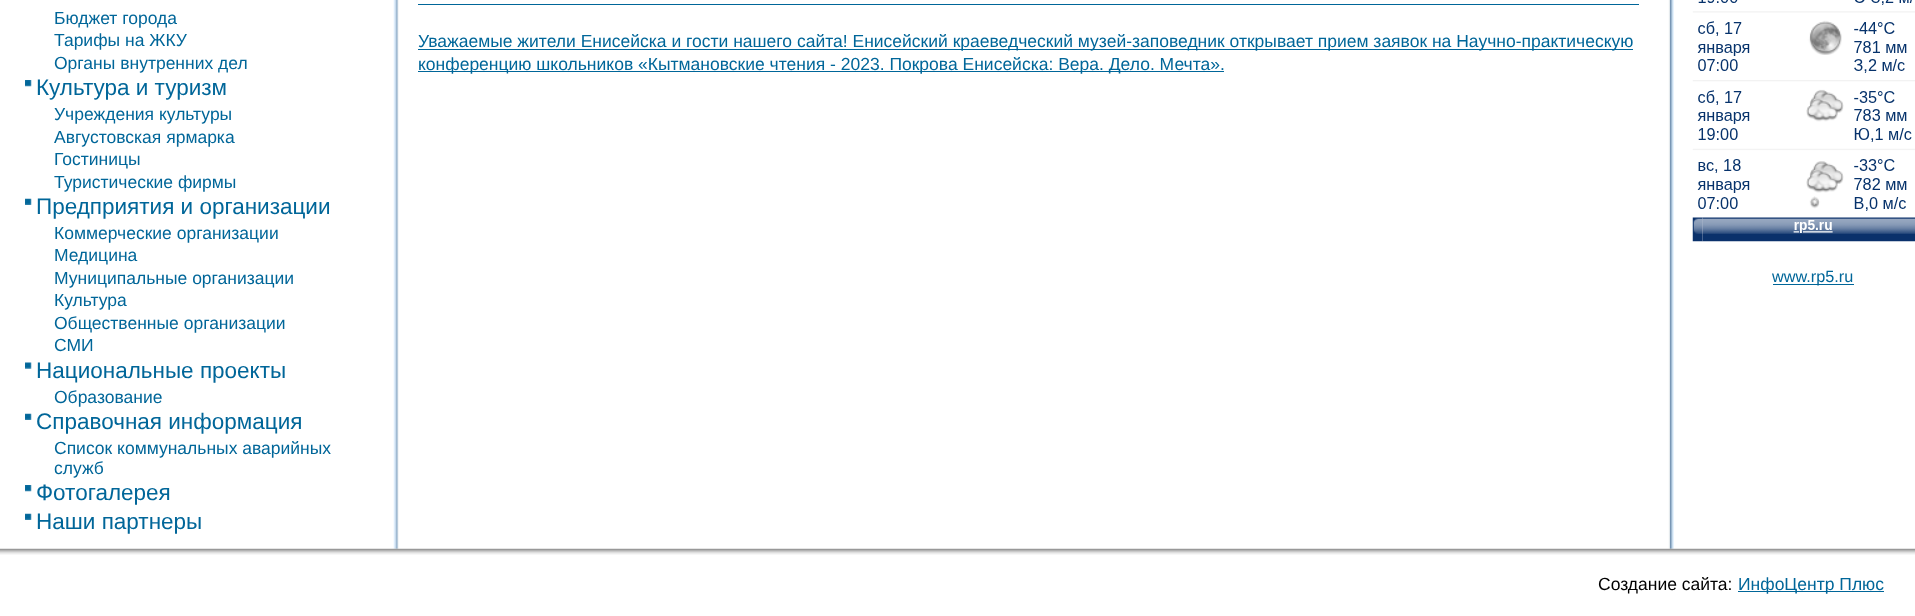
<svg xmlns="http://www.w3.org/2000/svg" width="1915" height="616">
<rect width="100%" height="100%" fill="#fff"/>
<image x="393" y="0" width="6" height="549" href="media/1.png"/>
<text x="54" y="24" style="font-family:Liberation Sans;font-size:17.5px;fill:#069">Бюджет города</text>
<text x="54" y="46" style="font-family:Liberation Sans;font-size:17.5px;fill:#069">Тарифы на ЖКУ</text>
<text x="54" y="69" style="font-family:Liberation Sans;font-size:17.5px;fill:#069">Органы внутренних дел</text>
<image x="25" y="80" width="7" height="7" href="media/2.png"/>
<text x="36" y="95" style="font-family:Liberation Sans;font-size:22.5px;fill:#069">Культура и туризм</text>
<text x="54" y="120" style="font-family:Liberation Sans;font-size:17.5px;fill:#069">Учреждения культуры</text>
<text x="54" y="143" style="font-family:Liberation Sans;font-size:17.5px;fill:#069">Августовская ярмарка</text>
<text x="54" y="165" style="font-family:Liberation Sans;font-size:17.5px;fill:#069">Гостиницы</text>
<text x="54" y="188" style="font-family:Liberation Sans;font-size:17.5px;fill:#069">Туристические фирмы</text>
<image x="25" y="198" width="7" height="7" href="media/3.png"/>
<text x="36" y="214" style="font-family:Liberation Sans;font-size:22.5px;fill:#069">Предприятия и организации</text>
<text x="54" y="239" style="font-family:Liberation Sans;font-size:17.5px;fill:#069">Коммерческие организации</text>
<text x="54" y="261" style="font-family:Liberation Sans;font-size:17.5px;fill:#069">Медицина</text>
<text x="54" y="284" style="font-family:Liberation Sans;font-size:17.5px;fill:#069">Муниципальные организации</text>
<text x="54" y="306" style="font-family:Liberation Sans;font-size:17.5px;fill:#069">Культура</text>
<text x="54" y="329" style="font-family:Liberation Sans;font-size:17.5px;fill:#069">Общественные организации</text>
<text x="54" y="351" style="font-family:Liberation Sans;font-size:17.5px;fill:#069">СМИ</text>
<image x="25" y="362" width="7" height="7" href="media/4.png"/>
<text x="36" y="378" style="font-family:Liberation Sans;font-size:22.5px;fill:#069">Национальные проекты</text>
<text x="54" y="403" style="font-family:Liberation Sans;font-size:17.5px;fill:#069">Образование</text>
<image x="25" y="413" width="7" height="7" href="media/3.png"/>
<text x="36" y="429" style="font-family:Liberation Sans;font-size:22.5px;fill:#069">Справочная информация</text>
<text x="54" y="454" style="font-family:Liberation Sans;font-size:17.5px;fill:#069">Список коммунальных аварийных</text>
<text x="54" y="474" style="font-family:Liberation Sans;font-size:17.5px;fill:#069">служб</text>
<image x="25" y="485" width="7" height="7" href="media/2.png"/>
<text x="36" y="500" style="font-family:Liberation Sans;font-size:22.5px;fill:#069">Фотогалерея</text>
<image x="25" y="513" width="7" height="7" href="media/3.png"/>
<text x="36" y="529" style="font-family:Liberation Sans;font-size:22.5px;fill:#069">Наши партнеры</text>
<rect x="418" y="4" width="1221" height="1" fill="#069"/>
<rect x="418" y="49" width="1215" height="1" fill="#069"/>
<text x="418" y="47" style="font-family:Liberation Sans;font-size:17.5px;fill:#069">Уважаемые жители Енисейска и гости нашего сайта! Енисейский краеведческий музей-заповедник открывает прием заявок на Научно-практическую</text>
<rect x="418" y="71" width="806" height="1" fill="#069"/>
<text x="418" y="70" style="font-family:Liberation Sans;font-size:17.5px;fill:#069">конференцию школьников «Кытмановские чтения - 2023. Покрова Енисейска: Вера. Дело. Мечта».</text>
<image x="1668" y="0" width="6" height="549" href="media/5.png"/>
<image x="1692" y="0" width="223" height="242" href="media/6.png"/>
<rect x="1773" y="284" width="81" height="1" fill="#069"/>
<text x="1772" y="282" style="font-family:Liberation Sans;font-size:16.25px;fill:#069">www.rp5.ru</text>
<image x="0" y="548" width="1915" height="7" href="media/7.png"/>
<text x="1598" y="590" style="font-family:Liberation Sans;font-size:17.5px;fill:#000">Создание сайта:</text>
<rect x="1738" y="591" width="146" height="1" fill="#069"/>
<text x="1738" y="590" style="font-family:Liberation Sans;font-size:17.5px;fill:#069">ИнфоЦентр Плюс</text>
</svg>
